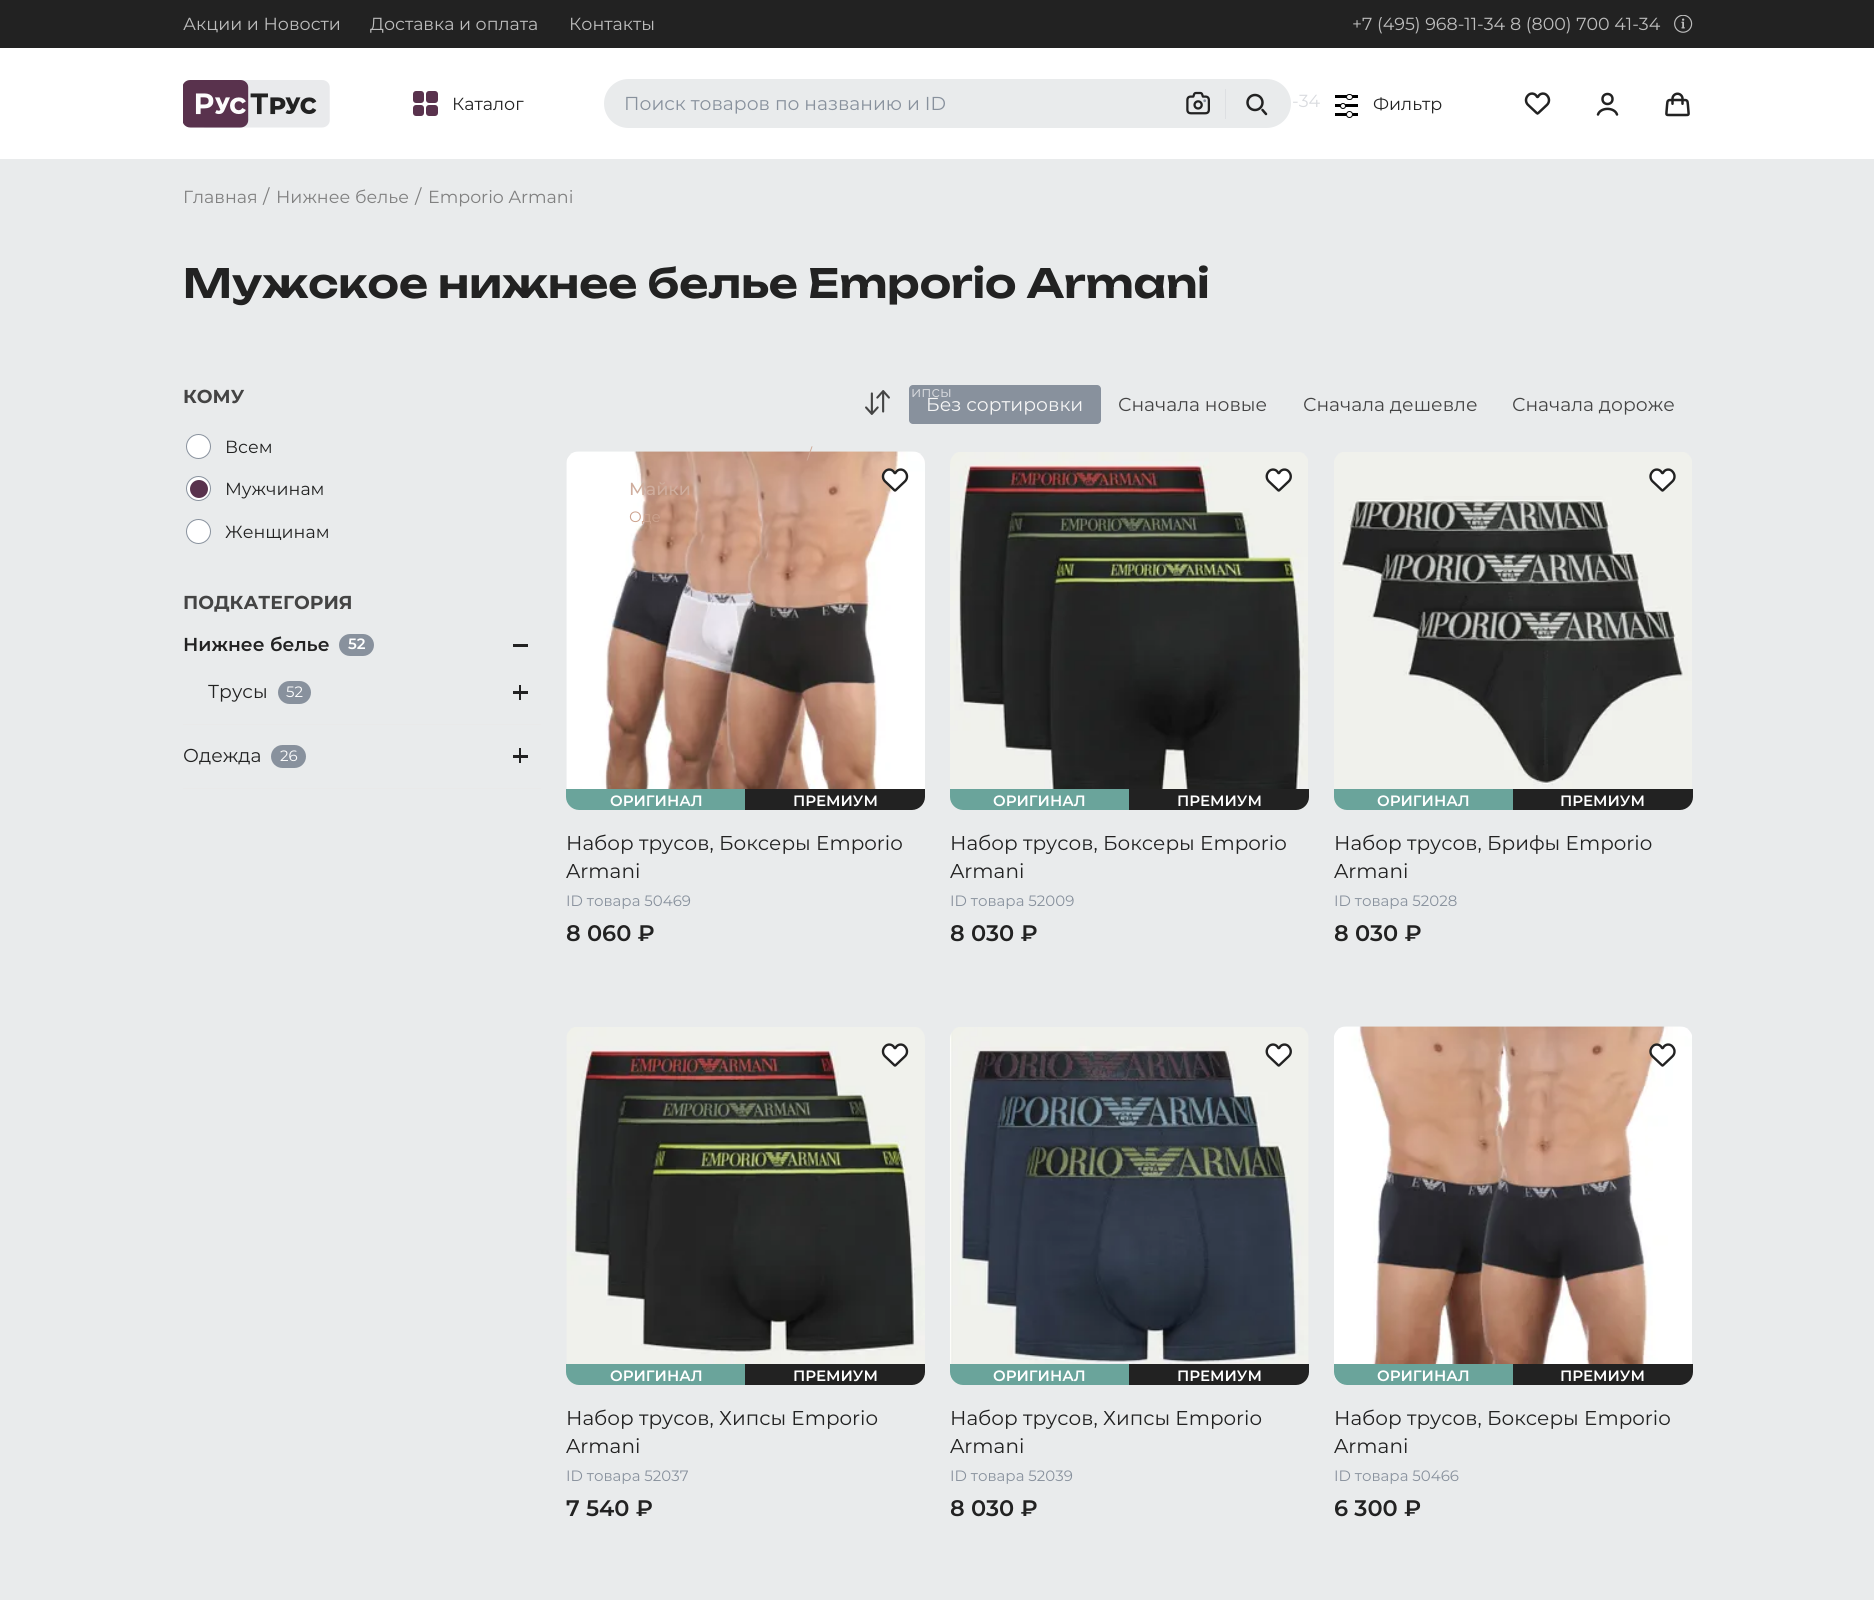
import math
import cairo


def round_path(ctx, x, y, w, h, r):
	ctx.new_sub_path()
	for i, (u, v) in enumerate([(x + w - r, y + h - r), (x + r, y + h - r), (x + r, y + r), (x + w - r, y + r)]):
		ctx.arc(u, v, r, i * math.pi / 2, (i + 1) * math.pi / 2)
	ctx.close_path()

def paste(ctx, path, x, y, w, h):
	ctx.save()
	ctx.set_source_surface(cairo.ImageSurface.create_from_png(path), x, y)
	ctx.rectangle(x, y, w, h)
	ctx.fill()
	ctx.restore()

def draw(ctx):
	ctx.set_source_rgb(0.914, 0.918, 0.925)
	ctx.paint()
	ctx.set_source_rgb(0.133, 0.133, 0.133)
	ctx.rectangle(0, 0, 1874, 48)
	ctx.fill()
	ctx.select_font_face('Montserrat')
	ctx.set_font_size(17.5)
	ctx.set_source_rgb(0.741, 0.741, 0.741)
	for x, y, s in [
		(183, 30, 'Акции и Новости'),
		(370, 30, 'Доставка и оплата'),
		(569, 30, 'Контакты'),
		(1352, 30, '+7 (495) 968-11-34'),
		(1510, 30, '8 (800) 700 41-34'),
	]:
		ctx.move_to(x, y)
		ctx.show_text(s)
	paste(ctx, 'media/1.png', 1674, 15, 19, 18)
	ctx.set_source_rgb(1, 1, 1)
	ctx.rectangle(0, 48, 1874, 111)
	ctx.fill()
	ctx.set_source_rgb(0.851, 0.859, 0.875)
	ctx.move_to(1292, 107)
	ctx.show_text('-34')
	paste(ctx, 'media/2.png', 183, 80, 147, 48)
	ctx.set_source_rgb(0.349, 0.196, 0.302)
	round_path(ctx, 413, 91, 11, 12, 3)
	ctx.fill()
	round_path(ctx, 426, 91, 12, 12, 3)
	ctx.fill()
	round_path(ctx, 413, 105, 11, 11, 3)
	ctx.fill()
	round_path(ctx, 426, 105, 12, 11, 3)
	ctx.fill()
	ctx.set_source_rgb(0.133, 0.133, 0.133)
	ctx.move_to(452, 110)
	ctx.show_text('Каталог')
	ctx.set_source_rgb(0.914, 0.918, 0.925)
	round_path(ctx, 604, 79, 687, 49, 24.5)
	ctx.fill()
	ctx.set_font_size(18.75)
	ctx.set_source_rgb(0.533, 0.569, 0.616)
	ctx.move_to(624, 110)
	ctx.show_text('Поиск товаров по названию и ID')
	paste(ctx, 'media/3.png', 1186, 91, 24, 24)
	ctx.set_source_rgb(0.867, 0.875, 0.886)
	ctx.rectangle(1225, 89, 1, 30)
	ctx.fill()
	ctx.arc(1255, 102.5, 7.5, 0, 2 * math.pi)
	ctx.set_source_rgb(0.133, 0.133, 0.133)
	ctx.set_line_width(2.5)
	ctx.stroke()
	ctx.new_path()
	ctx.move_to(1266, 114)
	ctx.line_to(1262.5, 110)
	ctx.set_line_cap(cairo.LINE_CAP_ROUND)
	ctx.stroke()
	ctx.set_source_rgb(0.533, 0.569, 0.616)
	round_path(ctx, 909, 385, 192, 39, 4)
	ctx.fill()
	ctx.set_font_size(15)
	ctx.set_source_rgb(0.851, 0.859, 0.875)
	ctx.move_to(911, 397)
	ctx.show_text('ипсы')
	paste(ctx, 'media/8.png', 566, 451, 359, 359)
	ctx.set_source_rgb(0.808, 0.659, 0.584)
	ctx.move_to(807, 459)
	ctx.show_text('/')
	ctx.select_font_face('Montserrat Medium')
	ctx.set_font_size(17.5)
	ctx.set_source_rgb(0.812, 0.678, 0.616)
	ctx.move_to(629, 495)
	ctx.show_text('Майки')
	ctx.select_font_face('Montserrat')
	ctx.set_font_size(15)
	ctx.set_source_rgb(0.8, 0.635, 0.553)
	ctx.move_to(629, 522)
	ctx.show_text('Оде')
	ctx.set_source_rgb(0, 0, 0)
	ctx.rectangle(1335, 95, 23, 3)
	ctx.fill()
	ctx.set_source_rgb(1, 1, 1)
	round_path(ctx, 1346.5, 94.5, 6, 5, 2.5)
	ctx.fill_preserve()
	ctx.set_source_rgb(0, 0, 0)
	ctx.set_line_width(1)
	ctx.set_line_cap(cairo.LINE_CAP_BUTT)
	ctx.stroke()
	ctx.rectangle(1335, 104, 23, 3)
	ctx.fill()
	ctx.set_source_rgb(1, 1, 1)
	ctx.arc(1343, 106, 2.5, 0, 2 * math.pi)
	ctx.fill_preserve()
	ctx.set_source_rgb(0, 0, 0)
	ctx.stroke()
	ctx.rectangle(1335, 113, 23, 3)
	ctx.fill()
	ctx.set_source_rgb(1, 1, 1)
	ctx.arc(1349.5, 114.5, 3, 0, 2 * math.pi)
	ctx.fill_preserve()
	ctx.set_source_rgb(0, 0, 0)
	ctx.stroke()
	ctx.set_font_size(17.5)
	ctx.set_source_rgb(0.133, 0.133, 0.133)
	ctx.move_to(1373, 110)
	ctx.show_text('Фильтр')
	paste(ctx, 'media/4.png', 1524, 92, 27, 23)
	ctx.new_path()
	ctx.move_to(1617, 114.5)
	ctx.curve_to(1614.5, 107, 1600.5, 107, 1598, 114.5)
	ctx.set_line_width(2.5)
	ctx.set_line_cap(cairo.LINE_CAP_ROUND)
	ctx.stroke()
	ctx.arc(1607.5, 99, 5, 0, 2 * math.pi)
	ctx.set_line_cap(cairo.LINE_CAP_BUTT)
	ctx.stroke()
	paste(ctx, 'media/5.png', 1665, 92, 25, 25)
	ctx.set_source_rgb(0.502, 0.502, 0.502)
	ctx.move_to(183, 203)
	ctx.show_text('Главная')
	ctx.set_font_size(18.75)
	ctx.move_to(263, 203)
	ctx.show_text('/')
	ctx.set_font_size(17.5)
	ctx.move_to(276, 203)
	ctx.show_text('Нижнее белье')
	ctx.set_font_size(18.75)
	ctx.move_to(415, 203)
	ctx.show_text('/')
	ctx.set_font_size(17.5)
	ctx.move_to(428, 203)
	ctx.show_text('Emporio Armani')
	ctx.select_font_face('Unbounded SemiBold')
	ctx.set_font_size(40)
	ctx.set_source_rgb(0.133, 0.133, 0.133)
	ctx.move_to(183, 298)
	ctx.show_text('Мужское нижнее белье Emporio Armani')
	ctx.select_font_face('Montserrat', cairo.FONT_SLANT_NORMAL, cairo.FONT_WEIGHT_BOLD)
	ctx.set_font_size(18.75)
	ctx.set_source_rgb(0.267, 0.267, 0.267)
	ctx.move_to(183, 403)
	ctx.show_text('КОМУ')
	ctx.set_source_rgb(1, 1, 1)
	ctx.new_path()
	ctx.arc(198.5, 446.5, 12, 0, 2 * math.pi)
	ctx.fill_preserve()
	ctx.set_source_rgb(0.533, 0.569, 0.616)
	ctx.set_line_width(1)
	ctx.stroke()
	ctx.select_font_face('Montserrat')
	ctx.set_font_size(17.5)
	ctx.set_source_rgb(0.133, 0.133, 0.133)
	ctx.move_to(225, 453)
	ctx.show_text('Всем')
	ctx.set_source_rgb(1, 1, 1)
	ctx.new_path()
	ctx.arc(198.5, 488.5, 12, 0, 2 * math.pi)
	ctx.fill_preserve()
	ctx.set_source_rgb(0.533, 0.569, 0.616)
	ctx.stroke()
	ctx.set_source_rgb(0.349, 0.196, 0.302)
	ctx.arc(199, 489, 9, 0, 2 * math.pi)
	ctx.fill()
	ctx.set_source_rgb(0.133, 0.133, 0.133)
	ctx.move_to(225, 495)
	ctx.show_text('Мужчинам')
	ctx.set_source_rgb(1, 1, 1)
	ctx.new_path()
	ctx.arc(198.5, 531.5, 12, 0, 2 * math.pi)
	ctx.fill_preserve()
	ctx.set_source_rgb(0.533, 0.569, 0.616)
	ctx.stroke()
	ctx.set_source_rgb(0.133, 0.133, 0.133)
	ctx.move_to(225, 538)
	ctx.show_text('Женщинам')
	ctx.select_font_face('Montserrat', cairo.FONT_SLANT_NORMAL, cairo.FONT_WEIGHT_BOLD)
	ctx.set_font_size(18.75)
	ctx.set_source_rgb(0.267, 0.267, 0.267)
	ctx.move_to(183, 609)
	ctx.show_text('ПОДКАТЕГОРИЯ')
	ctx.set_source_rgb(0.914, 0.914, 0.914)
	ctx.rectangle(183, 724, 358, 1)
	ctx.fill()
	ctx.select_font_face('Montserrat SemiBold')
	ctx.set_source_rgb(0.133, 0.133, 0.133)
	ctx.move_to(183, 651)
	ctx.show_text('Нижнее белье')
	ctx.set_source_rgb(0.533, 0.569, 0.616)
	round_path(ctx, 339, 634, 35, 22, 11)
	ctx.fill()
	ctx.set_font_size(15)
	ctx.set_source_rgb(1, 1, 1)
	ctx.move_to(348, 649)
	ctx.show_text('52')
	ctx.set_source_rgb(0.133, 0.133, 0.133)
	ctx.rectangle(513, 644, 15, 3)
	ctx.fill()
	ctx.select_font_face('Montserrat')
	ctx.set_font_size(18.75)
	ctx.move_to(208, 698)
	ctx.show_text('Трусы')
	ctx.set_source_rgb(0.533, 0.569, 0.616)
	round_path(ctx, 278, 681, 33, 23, 11.5)
	ctx.fill()
	ctx.set_font_size(15)
	ctx.set_source_rgb(1, 1, 1)
	ctx.move_to(286, 697)
	ctx.show_text('52')
	ctx.set_source_rgb(0.133, 0.133, 0.133)
	ctx.rectangle(513, 691, 15, 3)
	ctx.rectangle(519, 685, 2, 15)
	ctx.fill()
	ctx.set_source_rgb(0.914, 0.914, 0.914)
	ctx.rectangle(183, 788, 358, 1)
	ctx.fill()
	ctx.set_font_size(18.75)
	ctx.set_source_rgb(0.133, 0.133, 0.133)
	ctx.move_to(183, 762)
	ctx.show_text('Одежда')
	ctx.set_source_rgb(0.533, 0.569, 0.616)
	round_path(ctx, 271, 745, 35, 23, 11.5)
	ctx.fill()
	ctx.set_font_size(15)
	ctx.set_source_rgb(1, 1, 1)
	ctx.move_to(280, 761)
	ctx.show_text('26')
	ctx.set_source_rgb(0.133, 0.133, 0.133)
	ctx.rectangle(513, 755, 15, 3)
	ctx.fill()
	ctx.rectangle(519, 748, 2, 15)
	ctx.fill()
	paste(ctx, 'media/6.png', 865, 390, 25, 25)
	ctx.set_font_size(18.75)
	ctx.set_source_rgb(0.961, 0.961, 0.961)
	ctx.move_to(926, 411)
	ctx.show_text('Без сортировки')
	ctx.set_source_rgb(0.267, 0.267, 0.267)
	for x, y, s in [
		(1118, 411, 'Сначала новые'),
		(1303, 411, 'Сначала дешевле'),
		(1512, 411, 'Сначала дороже'),
	]:
		ctx.move_to(x, y)
		ctx.show_text(s)
	paste(ctx, 'media/7.png', 881, 468, 28, 24)
	ctx.set_source_rgb(0.416, 0.643, 0.608)
	ctx.new_path()
	ctx.move_to(566, 789)
	ctx.line_to(745, 789)
	ctx.line_to(745, 810)
	ctx.line_to(579, 810)
	ctx.curve_to(572, 810, 566, 804, 566, 797)
	ctx.close_path()
	ctx.fill()
	ctx.select_font_face('Montserrat SemiBold')
	ctx.set_font_size(15)
	ctx.set_source_rgb(1, 1, 1)
	ctx.move_to(610, 806)
	ctx.show_text('ОРИГИНАЛ')
	ctx.set_source_rgb(0.133, 0.133, 0.133)
	ctx.new_path()
	ctx.move_to(745, 789)
	ctx.line_to(925, 789)
	ctx.line_to(925, 797)
	ctx.curve_to(925, 804, 919, 810, 912, 810)
	ctx.line_to(745, 810)
	ctx.close_path()
	ctx.fill()
	ctx.set_source_rgb(1, 1, 1)
	ctx.move_to(793, 806)
	ctx.show_text('ПРЕМИУМ')
	ctx.select_font_face('Montserrat')
	ctx.set_font_size(20)
	ctx.set_source_rgb(0.133, 0.133, 0.133)
	ctx.move_to(566, 850)
	ctx.show_text('Набор трусов, Боксеры Emporio')
	ctx.move_to(566, 878)
	ctx.show_text('Armani')
	ctx.set_font_size(15)
	ctx.set_source_rgb(0.533, 0.569, 0.616)
	ctx.move_to(566, 906)
	ctx.show_text('ID товара 50469')
	ctx.select_font_face('Montserrat SemiBold')
	ctx.set_font_size(22.5)
	ctx.set_source_rgb(0.133, 0.133, 0.133)
	ctx.move_to(566, 941)
	ctx.show_text('8 060 ₽')
	paste(ctx, 'media/10.png', 950, 452, 358, 358)
	paste(ctx, 'media/9.png', 1265, 468, 27, 24)
	ctx.set_source_rgb(0.416, 0.643, 0.608)
	ctx.new_path()
	ctx.move_to(950, 789)
	ctx.line_to(1129, 789)
	ctx.line_to(1129, 810)
	ctx.line_to(963, 810)
	ctx.curve_to(956, 810, 950, 804, 950, 797)
	ctx.close_path()
	ctx.fill()
	ctx.set_font_size(15)
	ctx.set_source_rgb(1, 1, 1)
	ctx.move_to(993, 806)
	ctx.show_text('ОРИГИНАЛ')
	ctx.set_source_rgb(0.133, 0.133, 0.133)
	ctx.new_path()
	ctx.move_to(1129, 789)
	ctx.line_to(1309, 789)
	ctx.line_to(1309, 797)
	ctx.curve_to(1309, 804, 1303, 810, 1296, 810)
	ctx.line_to(1129, 810)
	ctx.close_path()
	ctx.fill()
	ctx.set_source_rgb(1, 1, 1)
	ctx.move_to(1177, 806)
	ctx.show_text('ПРЕМИУМ')
	ctx.select_font_face('Montserrat')
	ctx.set_font_size(20)
	ctx.set_source_rgb(0.133, 0.133, 0.133)
	ctx.move_to(950, 850)
	ctx.show_text('Набор трусов, Боксеры Emporio')
	ctx.move_to(950, 878)
	ctx.show_text('Armani')
	ctx.set_font_size(15)
	ctx.set_source_rgb(0.533, 0.569, 0.616)
	ctx.move_to(950, 906)
	ctx.show_text('ID товара 52009')
	ctx.select_font_face('Montserrat SemiBold')
	ctx.set_font_size(22.5)
	ctx.set_source_rgb(0.133, 0.133, 0.133)
	ctx.move_to(950, 941)
	ctx.show_text('8 030 ₽')
	paste(ctx, 'media/12.png', 1334, 452, 358, 358)
	paste(ctx, 'media/11.png', 1649, 468, 27, 24)
	ctx.set_source_rgb(0.416, 0.643, 0.608)
	ctx.new_path()
	ctx.move_to(1334, 789)
	ctx.line_to(1513, 789)
	ctx.line_to(1513, 810)
	ctx.line_to(1347, 810)
	ctx.curve_to(1340, 810, 1334, 804, 1334, 797)
	ctx.close_path()
	ctx.fill()
	ctx.set_font_size(15)
	ctx.set_source_rgb(1, 1, 1)
	ctx.move_to(1377, 806)
	ctx.show_text('ОРИГИНАЛ')
	ctx.set_source_rgb(0.133, 0.133, 0.133)
	ctx.new_path()
	ctx.move_to(1513, 789)
	ctx.line_to(1693, 789)
	ctx.line_to(1693, 797)
	ctx.curve_to(1693, 804, 1687, 810, 1680, 810)
	ctx.line_to(1513, 810)
	ctx.close_path()
	ctx.fill()
	ctx.set_source_rgb(1, 1, 1)
	ctx.move_to(1560, 806)
	ctx.show_text('ПРЕМИУМ')
	ctx.select_font_face('Montserrat')
	ctx.set_font_size(20)
	ctx.set_source_rgb(0.133, 0.133, 0.133)
	ctx.move_to(1334, 850)
	ctx.show_text('Набор трусов, Брифы Emporio')
	ctx.move_to(1334, 878)
	ctx.show_text('Armani')
	ctx.set_font_size(15)
	ctx.set_source_rgb(0.533, 0.569, 0.616)
	ctx.move_to(1334, 906)
	ctx.show_text('ID товара 52028')
	ctx.select_font_face('Montserrat SemiBold')
	ctx.set_font_size(22.5)
	ctx.set_source_rgb(0.133, 0.133, 0.133)
	ctx.move_to(1334, 941)
	ctx.show_text('8 030 ₽')
	paste(ctx, 'media/14.png', 566, 1027, 359, 358)
	paste(ctx, 'media/13.png', 881, 1043, 28, 24)
	ctx.set_source_rgb(0.416, 0.643, 0.608)
	ctx.new_path()
	ctx.move_to(566, 1364)
	ctx.line_to(745, 1364)
	ctx.line_to(745, 1385)
	ctx.line_to(579, 1385)
	ctx.curve_to(572, 1385, 566, 1379, 566, 1372)
	ctx.close_path()
	ctx.fill()
	ctx.set_font_size(15)
	ctx.set_source_rgb(1, 1, 1)
	ctx.move_to(610, 1381)
	ctx.show_text('ОРИГИНАЛ')
	ctx.set_source_rgb(0.133, 0.133, 0.133)
	ctx.new_path()
	ctx.move_to(745, 1364)
	ctx.line_to(925, 1364)
	ctx.line_to(925, 1372)
	ctx.curve_to(925, 1379, 919, 1385, 912, 1385)
	ctx.line_to(745, 1385)
	ctx.close_path()
	ctx.fill()
	ctx.set_source_rgb(1, 1, 1)
	ctx.move_to(793, 1381)
	ctx.show_text('ПРЕМИУМ')
	ctx.select_font_face('Montserrat')
	ctx.set_font_size(20)
	ctx.set_source_rgb(0.133, 0.133, 0.133)
	ctx.move_to(566, 1425)
	ctx.show_text('Набор трусов, Хипсы Emporio')
	ctx.move_to(566, 1453)
	ctx.show_text('Armani')
	ctx.set_font_size(15)
	ctx.set_source_rgb(0.533, 0.569, 0.616)
	ctx.move_to(566, 1481)
	ctx.show_text('ID товара 52037')
	ctx.select_font_face('Montserrat SemiBold')
	ctx.set_font_size(22.5)
	ctx.set_source_rgb(0.133, 0.133, 0.133)
	ctx.move_to(566, 1516)
	ctx.show_text('7 540 ₽')
	paste(ctx, 'media/15.png', 950, 1027, 359, 358)
	paste(ctx, 'media/9.png', 1265, 1043, 27, 24)
	ctx.set_source_rgb(0.416, 0.643, 0.608)
	ctx.new_path()
	ctx.move_to(950, 1364)
	ctx.line_to(1129, 1364)
	ctx.line_to(1129, 1385)
	ctx.line_to(963, 1385)
	ctx.curve_to(956, 1385, 950, 1379, 950, 1372)
	ctx.close_path()
	ctx.fill()
	ctx.set_font_size(15)
	ctx.set_source_rgb(1, 1, 1)
	ctx.move_to(993, 1381)
	ctx.show_text('ОРИГИНАЛ')
	ctx.set_source_rgb(0.133, 0.133, 0.133)
	ctx.new_path()
	ctx.move_to(1129, 1364)
	ctx.line_to(1309, 1364)
	ctx.line_to(1309, 1372)
	ctx.curve_to(1309, 1379, 1303, 1385, 1296, 1385)
	ctx.line_to(1129, 1385)
	ctx.close_path()
	ctx.fill()
	ctx.set_source_rgb(1, 1, 1)
	ctx.move_to(1177, 1381)
	ctx.show_text('ПРЕМИУМ')
	ctx.select_font_face('Montserrat')
	ctx.set_font_size(20)
	ctx.set_source_rgb(0.133, 0.133, 0.133)
	ctx.move_to(950, 1425)
	ctx.show_text('Набор трусов, Хипсы Emporio')
	ctx.move_to(950, 1453)
	ctx.show_text('Armani')
	ctx.set_font_size(15)
	ctx.set_source_rgb(0.533, 0.569, 0.616)
	ctx.move_to(950, 1481)
	ctx.show_text('ID товара 52039')
	ctx.select_font_face('Montserrat SemiBold')
	ctx.set_font_size(22.5)
	ctx.set_source_rgb(0.133, 0.133, 0.133)
	ctx.move_to(950, 1516)
	ctx.show_text('8 030 ₽')
	paste(ctx, 'media/17.png', 1334, 1026, 358, 359)
	paste(ctx, 'media/16.png', 1649, 1043, 27, 24)
	ctx.set_source_rgb(0.416, 0.643, 0.608)
	ctx.new_path()
	ctx.move_to(1334, 1364)
	ctx.line_to(1513, 1364)
	ctx.line_to(1513, 1385)
	ctx.line_to(1347, 1385)
	ctx.curve_to(1340, 1385, 1334, 1379, 1334, 1372)
	ctx.close_path()
	ctx.fill()
	ctx.set_font_size(15)
	ctx.set_source_rgb(1, 1, 1)
	ctx.move_to(1377, 1381)
	ctx.show_text('ОРИГИНАЛ')
	ctx.set_source_rgb(0.133, 0.133, 0.133)
	ctx.new_path()
	ctx.move_to(1513, 1364)
	ctx.line_to(1693, 1364)
	ctx.line_to(1693, 1372)
	ctx.curve_to(1693, 1379, 1687, 1385, 1680, 1385)
	ctx.line_to(1513, 1385)
	ctx.close_path()
	ctx.fill()
	ctx.set_source_rgb(1, 1, 1)
	ctx.move_to(1560, 1381)
	ctx.show_text('ПРЕМИУМ')
	ctx.select_font_face('Montserrat')
	ctx.set_font_size(20)
	ctx.set_source_rgb(0.133, 0.133, 0.133)
	ctx.move_to(1334, 1425)
	ctx.show_text('Набор трусов, Боксеры Emporio')
	ctx.move_to(1334, 1453)
	ctx.show_text('Armani')
	ctx.set_font_size(15)
	ctx.set_source_rgb(0.533, 0.569, 0.616)
	ctx.move_to(1334, 1481)
	ctx.show_text('ID товара 50466')
	ctx.select_font_face('Montserrat SemiBold')
	ctx.set_font_size(22.5)
	ctx.set_source_rgb(0.133, 0.133, 0.133)
	ctx.move_to(1334, 1516)
	ctx.show_text('6 300 ₽')


surface = cairo.ImageSurface(cairo.FORMAT_RGB24, 1874, 1600)
ctx = cairo.Context(surface)
options = cairo.FontOptions()
options.set_hint_metrics(cairo.HINT_METRICS_OFF)
options.set_hint_style(cairo.HINT_STYLE_NONE)
ctx.set_font_options(options)
ctx.set_miter_limit(4)
draw(ctx)
surface.write_to_png('image.png')
